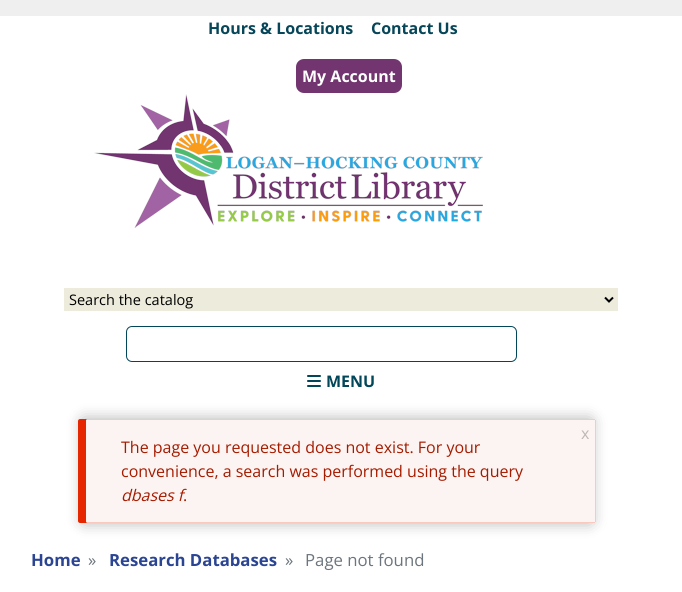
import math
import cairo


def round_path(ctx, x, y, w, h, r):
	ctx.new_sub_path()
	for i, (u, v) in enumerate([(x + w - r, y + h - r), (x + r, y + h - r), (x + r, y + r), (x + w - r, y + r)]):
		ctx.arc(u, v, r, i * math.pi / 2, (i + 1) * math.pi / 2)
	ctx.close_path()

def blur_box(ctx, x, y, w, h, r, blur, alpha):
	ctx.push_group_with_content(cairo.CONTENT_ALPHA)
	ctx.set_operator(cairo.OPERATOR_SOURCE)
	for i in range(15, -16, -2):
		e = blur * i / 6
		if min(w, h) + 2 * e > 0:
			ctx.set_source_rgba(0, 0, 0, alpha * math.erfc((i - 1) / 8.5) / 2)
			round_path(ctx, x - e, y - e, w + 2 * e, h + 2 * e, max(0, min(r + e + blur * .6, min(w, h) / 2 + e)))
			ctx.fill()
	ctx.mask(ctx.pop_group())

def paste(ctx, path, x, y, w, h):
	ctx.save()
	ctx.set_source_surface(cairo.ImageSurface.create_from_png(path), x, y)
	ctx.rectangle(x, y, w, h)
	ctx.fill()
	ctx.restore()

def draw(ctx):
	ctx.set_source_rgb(1, 1, 1)
	ctx.paint()
	ctx.set_source_rgb(0.937, 0.937, 0.937)
	ctx.rectangle(0, 0, 682, 16)
	ctx.fill()
	ctx.select_font_face('Open Sans', cairo.FONT_SLANT_NORMAL, cairo.FONT_WEIGHT_BOLD)
	ctx.set_font_size(16)
	ctx.set_source_rgb(0.031, 0.275, 0.345)
	ctx.move_to(208, 34)
	ctx.show_text('Hours & Locations')
	ctx.move_to(371, 34)
	ctx.show_text('Contact Us')
	ctx.set_source_rgb(0.447, 0.208, 0.439)
	round_path(ctx, 296, 59, 106, 34, 8)
	ctx.fill()
	ctx.set_source_rgb(1, 1, 1)
	ctx.move_to(302, 82)
	ctx.show_text('My Account')
	paste(ctx, 'media/1.png', 94, 94, 389, 134)
	ctx.set_source_rgb(0.929, 0.918, 0.863)
	ctx.rectangle(64, 288, 554, 23)
	ctx.fill()
	ctx.new_path()
	ctx.move_to(605, 297.5)
	ctx.line_to(609, 301.5)
	ctx.line_to(613, 297.5)
	ctx.set_source_rgb(0, 0, 0)
	ctx.stroke()
	ctx.select_font_face('Open Sans')
	ctx.set_font_size(14.5)
	ctx.move_to(69, 305)
	ctx.show_text('Search the catalog')
	round_path(ctx, 126.5, 326.5, 390, 35, 5.5)
	ctx.set_source_rgb(0.008, 0.275, 0.349)
	ctx.set_line_width(1)
	ctx.stroke()
	paste(ctx, 'media/2.png', 307, 375, 14, 12)
	ctx.select_font_face('Open Sans', cairo.FONT_SLANT_NORMAL, cairo.FONT_WEIGHT_BOLD)
	ctx.set_font_size(16)
	ctx.move_to(326, 387)
	ctx.show_text('MENU')
	ctx.set_source_rgb(0, 0, 0)
	blur_box(ctx, 82, 419, 510, 104, 2, 7.5, 0.3)
	ctx.set_source_rgb(0.902, 0.149, 0)
	ctx.new_path()
	ctx.move_to(80, 419)
	ctx.curve_to(79, 419, 78, 420, 78, 421)
	ctx.line_to(78, 521)
	ctx.curve_to(78, 522, 79, 523, 80, 523)
	ctx.line_to(88, 523)
	ctx.curve_to(87, 523, 86, 522, 86, 521)
	ctx.line_to(86, 420)
	ctx.line_to(88, 419)
	ctx.close_path()
	ctx.fill()
	ctx.set_source_rgb(0.988, 0.957, 0.949)
	round_path(ctx, 86, 419, 510, 104, 2)
	ctx.fill()
	ctx.set_source_rgb(0.976, 0.788, 0.749)
	ctx.rectangle(87, 419, 508, 1)
	ctx.rectangle(595, 420, 1, 102)
	ctx.rectangle(87, 522, 508, 1)
	ctx.fill()
	ctx.select_font_face('Open Sans')
	ctx.set_source_rgb(0.741, 0.718, 0.714)
	ctx.move_to(581, 439)
	ctx.show_text('x')
	ctx.set_source_rgb(0.647, 0.106, 0)
	ctx.move_to(121, 453)
	ctx.show_text('The page you requested does not exist. For your')
	ctx.move_to(121, 477)
	ctx.show_text('convenience, a search was performed using the query')
	ctx.select_font_face('Open Sans', cairo.FONT_SLANT_ITALIC)
	ctx.move_to(121, 501)
	ctx.show_text('dbases f')
	ctx.select_font_face('Open Sans')
	ctx.move_to(183, 501)
	ctx.show_text('.')
	ctx.select_font_face('Open Sans', cairo.FONT_SLANT_NORMAL, cairo.FONT_WEIGHT_BOLD)
	ctx.set_font_size(16.75)
	ctx.set_source_rgb(0.169, 0.271, 0.576)
	ctx.move_to(31, 566)
	ctx.show_text('Home')
	ctx.select_font_face('Open Sans')
	ctx.set_source_rgb(0.424, 0.459, 0.49)
	ctx.move_to(88, 566)
	ctx.show_text('»')
	ctx.select_font_face('Open Sans', cairo.FONT_SLANT_NORMAL, cairo.FONT_WEIGHT_BOLD)
	ctx.set_source_rgb(0.169, 0.271, 0.576)
	ctx.move_to(109, 566)
	ctx.show_text('Research Databases')
	ctx.select_font_face('Open Sans')
	ctx.set_source_rgb(0.424, 0.459, 0.49)
	ctx.move_to(285, 566)
	ctx.show_text('»')
	ctx.move_to(305, 566)
	ctx.show_text('Page not found')


surface = cairo.ImageSurface(cairo.FORMAT_RGB24, 682, 592)
ctx = cairo.Context(surface)
options = cairo.FontOptions()
options.set_hint_metrics(cairo.HINT_METRICS_OFF)
options.set_hint_style(cairo.HINT_STYLE_NONE)
ctx.set_font_options(options)
ctx.set_miter_limit(4)
draw(ctx)
surface.write_to_png('image.png')
